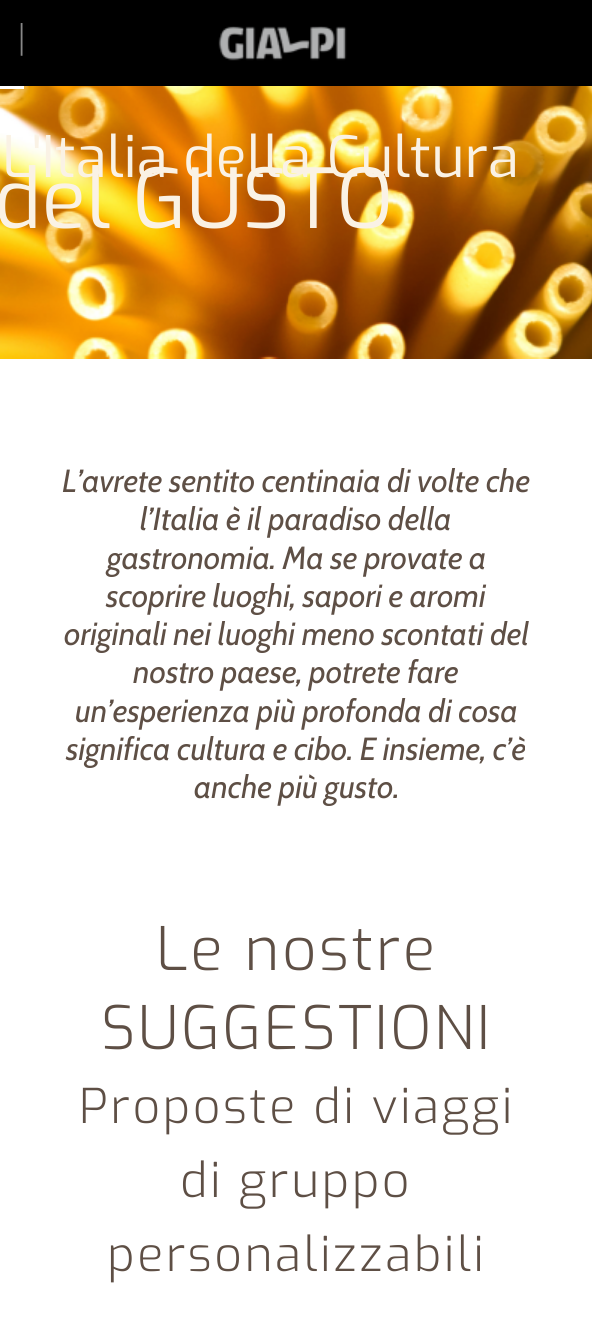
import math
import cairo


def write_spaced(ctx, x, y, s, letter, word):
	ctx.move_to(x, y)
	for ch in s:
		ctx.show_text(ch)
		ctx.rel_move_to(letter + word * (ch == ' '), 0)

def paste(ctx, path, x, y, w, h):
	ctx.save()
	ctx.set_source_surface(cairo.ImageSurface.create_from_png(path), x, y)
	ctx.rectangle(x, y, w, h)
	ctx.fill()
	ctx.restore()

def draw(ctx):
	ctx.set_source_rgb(1, 1, 1)
	ctx.paint()
	ctx.set_source_rgb(0, 0, 0)
	ctx.rectangle(0, 0, 592, 86)
	ctx.fill()
	ctx.select_font_face('Liberation Serif')
	ctx.set_font_size(36)
	ctx.set_source_rgb(0.533, 0.533, 0.533)
	write_spaced(ctx, 18, 48, '|', 2, 0)
	paste(ctx, 'media/1.png', 218, 26, 129, 35)
	paste(ctx, 'media/2.png', 0, 86, 592, 273)
	ctx.set_source_rgb(1, 1, 1)
	ctx.rectangle(0, 86, 24, 3)
	ctx.fill()
	ctx.select_font_face('Exo')
	ctx.set_font_size(57)
	ctx.set_source_rgb(0.98, 0.949, 0.898)
	ctx.move_to(2, 177)
	ctx.show_text('L\'Italia della Cultura')
	ctx.set_font_size(82.5)
	ctx.move_to(-6, 228)
	ctx.show_text('del GUSTO')
	ctx.select_font_face('Cabin', cairo.FONT_SLANT_ITALIC)
	ctx.set_font_size(32)
	ctx.set_source_rgb(0.369, 0.31, 0.271)
	for x, y, s in [
		(62, 492, 'L’avrete sentito centinaia di volte che'),
		(140, 530, 'l’Italia è il paradiso della'),
		(107, 569, 'gastronomia. Ma se provate a'),
		(106, 607, 'scoprire luoghi, sapori e aromi'),
		(64, 645, 'originali nei luoghi meno scontati del'),
		(133, 683, 'nostro paese, potrete fare'),
		(75, 722, 'un’esperienza più profonda di cosa'),
		(66, 760, 'significa cultura e cibo. E insieme, c’è'),
		(194, 798, 'anche più gusto.'),
	]:
		ctx.move_to(x, y)
		ctx.show_text(s)
	ctx.select_font_face('Exo Light')
	ctx.set_font_size(60)
	write_spaced(ctx, 156, 970, 'Le nostre', 2.5, 0)
	write_spaced(ctx, 101, 1049, 'SUGGESTIONI', 2.5, 0)
	ctx.set_font_size(48)
	for x, y, s in [
		(79, 1123, 'Proposte di viaggi'),
		(180, 1197, 'di gruppo'),
		(107, 1271, 'personalizzabili'),
	]:
		write_spaced(ctx, x, y, s, 2.5, 0)


surface = cairo.ImageSurface(cairo.FORMAT_RGB24, 592, 1337)
ctx = cairo.Context(surface)
options = cairo.FontOptions()
options.set_hint_metrics(cairo.HINT_METRICS_OFF)
options.set_hint_style(cairo.HINT_STYLE_NONE)
ctx.set_font_options(options)
ctx.set_miter_limit(4)
draw(ctx)
surface.write_to_png('image.png')
